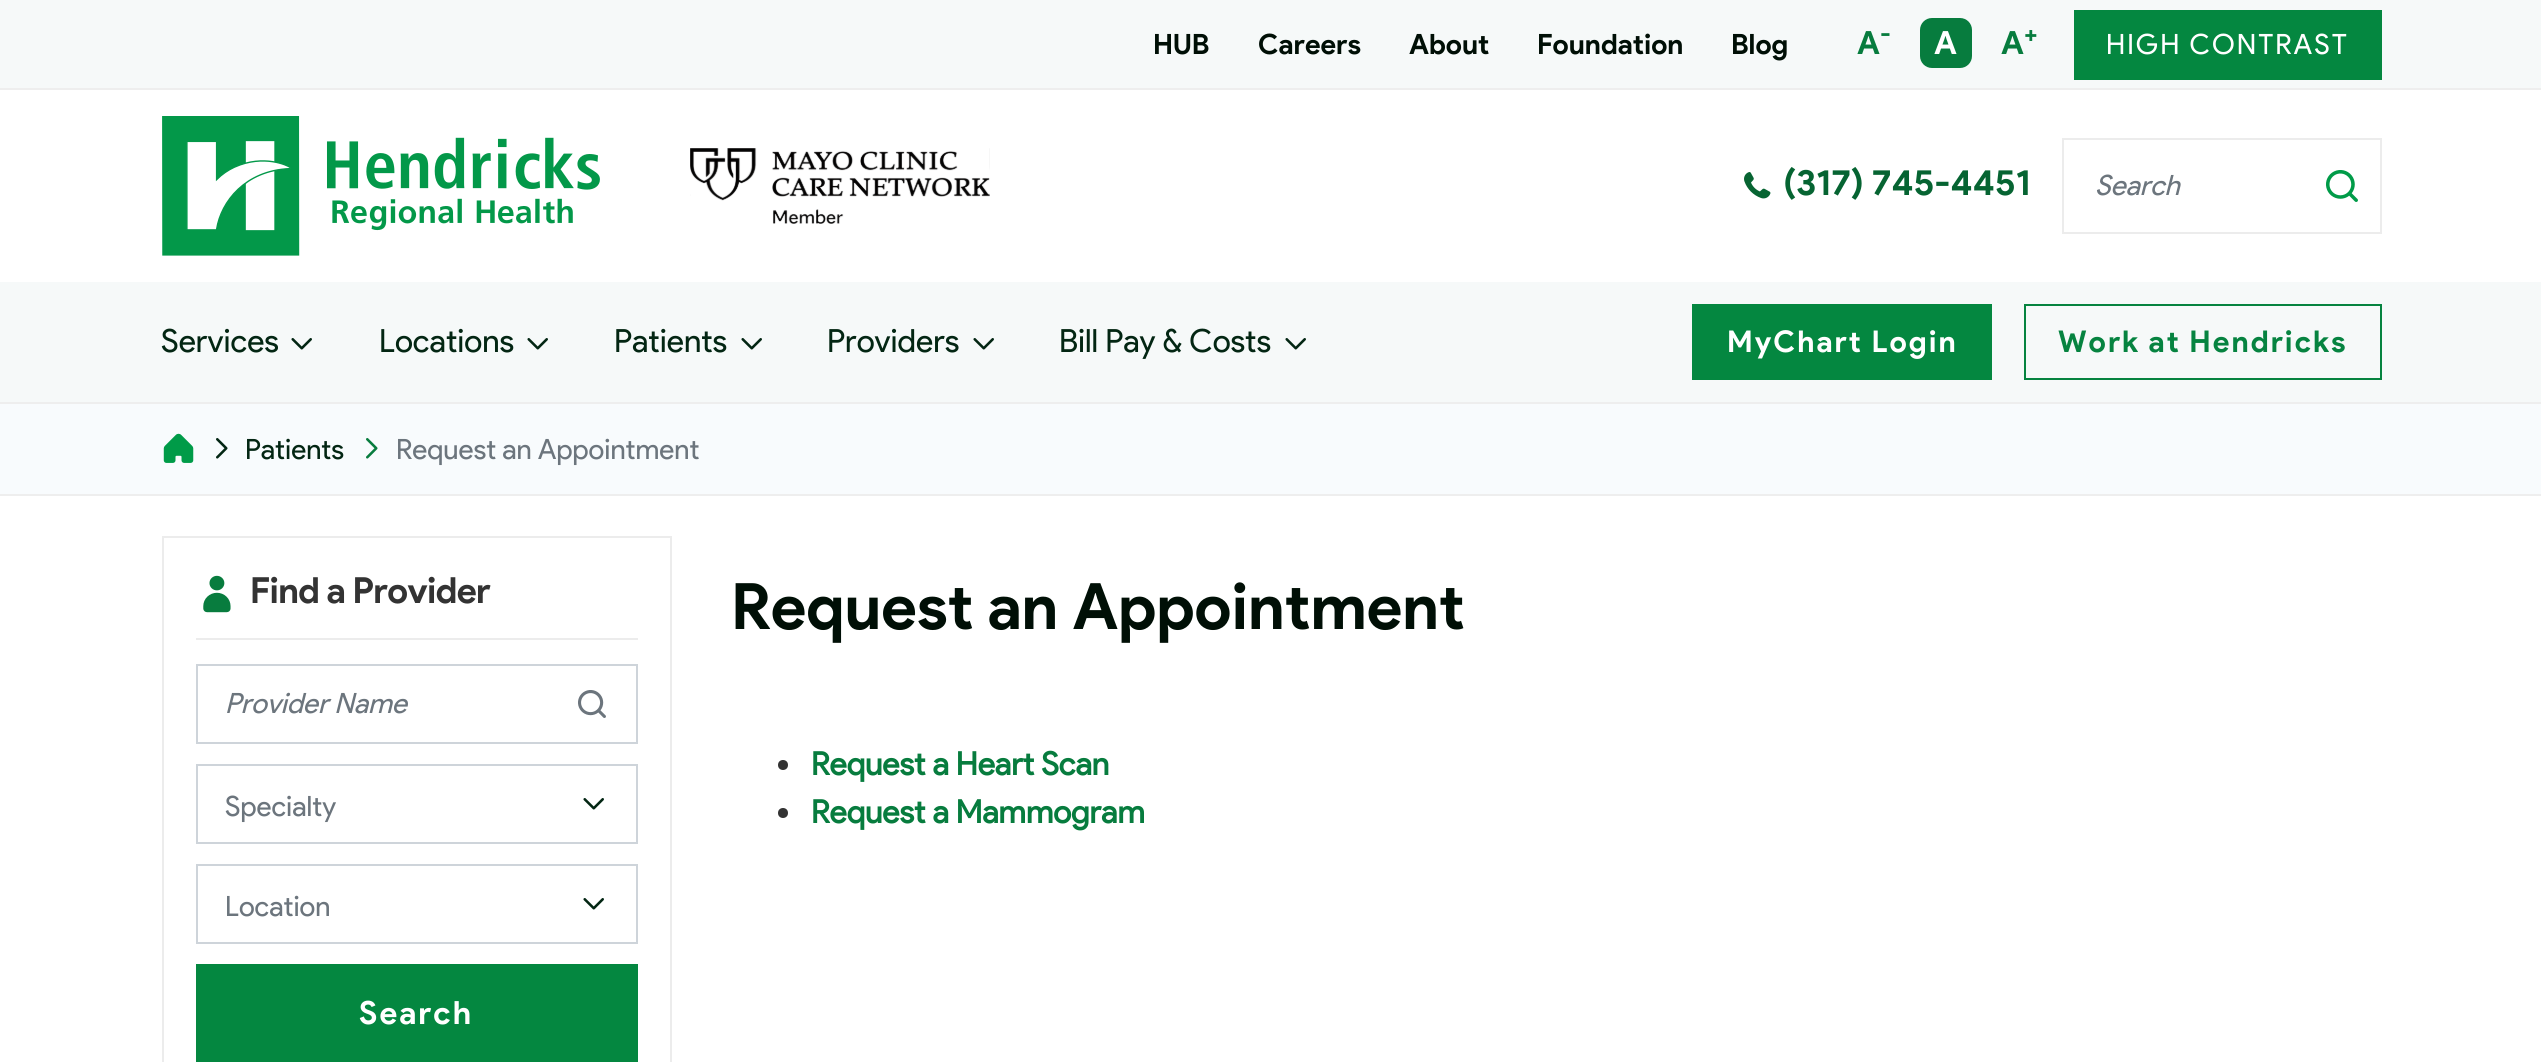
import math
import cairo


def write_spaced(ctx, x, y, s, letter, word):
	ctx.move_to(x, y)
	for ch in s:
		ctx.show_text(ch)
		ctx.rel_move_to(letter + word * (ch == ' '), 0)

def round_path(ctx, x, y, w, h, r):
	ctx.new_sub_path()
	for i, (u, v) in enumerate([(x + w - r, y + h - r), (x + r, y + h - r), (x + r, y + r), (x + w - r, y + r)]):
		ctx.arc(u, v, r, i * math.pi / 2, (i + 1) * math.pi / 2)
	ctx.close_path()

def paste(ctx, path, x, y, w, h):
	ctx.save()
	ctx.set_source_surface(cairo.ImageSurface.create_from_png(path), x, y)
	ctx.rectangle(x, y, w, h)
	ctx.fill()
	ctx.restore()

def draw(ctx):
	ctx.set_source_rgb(1, 1, 1)
	ctx.paint()
	ctx.set_source_rgb(0.961, 0.973, 0.976)
	ctx.rectangle(0, 0, 2541, 88)
	ctx.fill()
	ctx.set_source_rgb(0.933, 0.933, 0.933)
	ctx.rectangle(0, 88, 2541, 2)
	ctx.fill()
	ctx.select_font_face('Product Sans', cairo.FONT_SLANT_NORMAL, cairo.FONT_WEIGHT_BOLD)
	ctx.set_font_size(28)
	ctx.set_source_rgb(0, 0.059, 0.027)
	for x, y, s in [
		(1153, 54, 'HUB'),
		(1258, 54, 'Careers'),
		(1409, 54, 'About'),
		(1537, 54, 'Foundation'),
		(1731, 54, 'Blog'),
	]:
		ctx.move_to(x, y)
		ctx.show_text(s)
	ctx.set_font_size(32)
	ctx.set_source_rgb(0.031, 0.486, 0.243)
	ctx.move_to(1857, 54)
	ctx.show_text('A')
	ctx.set_font_size(24)
	ctx.move_to(1880, 42)
	ctx.show_text('-')
	round_path(ctx, 1920, 18, 52, 50, 12)
	ctx.fill()
	ctx.set_font_size(32)
	ctx.set_source_rgb(1, 1, 1)
	ctx.move_to(1934, 54)
	ctx.show_text('A')
	ctx.set_source_rgb(0.031, 0.486, 0.243)
	ctx.move_to(2001, 54)
	ctx.show_text('A')
	ctx.set_font_size(24)
	ctx.move_to(2024, 42)
	ctx.show_text('+')
	ctx.set_source_rgb(0.016, 0.529, 0.251)
	ctx.rectangle(2074, 10, 308, 70)
	ctx.fill()
	ctx.select_font_face('Product Sans')
	ctx.set_font_size(28)
	ctx.set_source_rgb(1, 1, 1)
	write_spaced(ctx, 2106, 54, 'HIGH CONTRAST', 2, 0)
	paste(ctx, 'media/1.png', 162, 116, 438, 140)
	paste(ctx, 'media/2.png', 690, 148, 300, 76)
	paste(ctx, 'media/3.png', 1744, 172, 27, 27)
	ctx.select_font_face('Product Sans', cairo.FONT_SLANT_NORMAL, cairo.FONT_WEIGHT_BOLD)
	ctx.set_font_size(36)
	ctx.set_source_rgb(0.027, 0.392, 0.196)
	ctx.move_to(1783, 195)
	ctx.show_text('(317) 745-4451')
	ctx.rectangle(2063, 139, 318, 94)
	ctx.set_source_rgb(0.922, 0.922, 0.922)
	ctx.stroke()
	ctx.select_font_face('Product Sans', cairo.FONT_SLANT_ITALIC)
	ctx.set_font_size(28)
	ctx.set_source_rgb(0.424, 0.459, 0.49)
	ctx.move_to(2095, 195)
	ctx.show_text('Search')
	paste(ctx, 'media/4.png', 2326, 170, 32, 32)
	ctx.set_source_rgb(0.961, 0.973, 0.976)
	ctx.rectangle(0, 282, 2541, 120)
	ctx.fill()
	ctx.select_font_face('Product Sans')
	ctx.set_font_size(32)
	ctx.set_source_rgb(0.012, 0.149, 0.075)
	ctx.move_to(161, 352)
	ctx.show_text('Services')
	paste(ctx, 'media/5.png', 291, 338, 21, 12)
	ctx.move_to(379, 352)
	ctx.show_text('Locations')
	paste(ctx, 'media/5.png', 527, 338, 21, 12)
	ctx.move_to(614, 352)
	ctx.show_text('Patients')
	paste(ctx, 'media/5.png', 741, 338, 21, 12)
	ctx.move_to(827, 352)
	ctx.show_text('Providers')
	paste(ctx, 'media/5.png', 973, 338, 21, 12)
	ctx.move_to(1059, 352)
	ctx.show_text('Bill Pay & Costs')
	paste(ctx, 'media/5.png', 1285, 338, 21, 12)
	ctx.set_source_rgb(0.016, 0.529, 0.251)
	ctx.rectangle(1692, 304, 300, 76)
	ctx.fill()
	ctx.select_font_face('Product Sans', cairo.FONT_SLANT_NORMAL, cairo.FONT_WEIGHT_BOLD)
	ctx.set_font_size(30)
	ctx.set_source_rgb(1, 1, 1)
	write_spaced(ctx, 1727, 352, 'MyChart Login', 2, 0)
	ctx.rectangle(2025, 305, 356, 74)
	ctx.set_source_rgb(0.024, 0.514, 0.251)
	ctx.stroke()
	write_spaced(ctx, 2058, 352, 'Work at Hendricks', 2, 0)
	ctx.set_source_rgb(0.969, 0.984, 0.992)
	ctx.rectangle(0, 404, 2541, 90)
	ctx.fill()
	ctx.set_source_rgb(0.933, 0.933, 0.933)
	ctx.rectangle(0, 402, 2541, 2)
	ctx.rectangle(0, 494, 2541, 2)
	ctx.fill()
	paste(ctx, 'media/6.png', 163, 433, 31, 30)
	paste(ctx, 'media/7.png', 216, 438, 12, 21)
	ctx.select_font_face('Product Sans')
	ctx.set_font_size(28)
	ctx.set_source_rgb(0.012, 0.149, 0.075)
	ctx.move_to(245, 459)
	ctx.show_text('Patients')
	paste(ctx, 'media/8.png', 366, 438, 12, 21)
	ctx.set_source_rgb(0.424, 0.459, 0.49)
	ctx.move_to(396, 459)
	ctx.show_text('Request an Appointment')
	ctx.rectangle(163, 537, 508, 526)
	ctx.set_source_rgb(0.922, 0.922, 0.922)
	ctx.stroke()
	ctx.rectangle(196, 638, 442, 2)
	ctx.fill()
	paste(ctx, 'media/9.png', 203, 575, 28, 38)
	ctx.select_font_face('Product Sans', cairo.FONT_SLANT_NORMAL, cairo.FONT_WEIGHT_BOLD)
	ctx.set_font_size(36)
	ctx.set_source_rgb(0.2, 0.2, 0.2)
	write_spaced(ctx, 250, 603, 'Find a Provider', -0.6, 0)
	ctx.rectangle(197, 665, 440, 78)
	ctx.set_source_rgb(0.808, 0.831, 0.855)
	ctx.stroke()
	ctx.select_font_face('Product Sans', cairo.FONT_SLANT_ITALIC)
	ctx.set_font_size(28)
	ctx.set_source_rgb(0.424, 0.459, 0.49)
	ctx.move_to(225, 713)
	ctx.show_text('Provider Name')
	paste(ctx, 'media/10.png', 578, 690, 28, 28)
	ctx.rectangle(197, 765, 440, 78)
	ctx.set_source_rgb(0.808, 0.831, 0.855)
	ctx.stroke()
	ctx.select_font_face('Product Sans')
	ctx.set_source_rgb(0.424, 0.459, 0.49)
	ctx.move_to(225, 816)
	ctx.show_text('Specialty')
	paste(ctx, 'media/11.png', 583, 798, 21, 12)
	ctx.rectangle(197, 865, 440, 78)
	ctx.set_source_rgb(0.808, 0.831, 0.855)
	ctx.stroke()
	ctx.set_source_rgb(0.424, 0.459, 0.49)
	ctx.move_to(225, 916)
	ctx.show_text('Location')
	paste(ctx, 'media/11.png', 583, 898, 21, 12)
	ctx.set_source_rgb(0.016, 0.529, 0.251)
	ctx.rectangle(196, 964, 442, 98)
	ctx.fill()
	ctx.select_font_face('Product Sans', cairo.FONT_SLANT_NORMAL, cairo.FONT_WEIGHT_BOLD)
	ctx.set_font_size(32)
	ctx.set_source_rgb(1, 1, 1)
	write_spaced(ctx, 359, 1024, 'Search', 2, 0)
	ctx.set_font_size(64)
	ctx.set_source_rgb(0, 0.059, 0.027)
	ctx.move_to(731, 629)
	ctx.show_text('Request an Appointment')
	ctx.set_source_rgb(0.2, 0.2, 0.2)
	ctx.new_path()
	ctx.arc(783, 765, 5, 0, 2 * math.pi)
	ctx.fill()
	ctx.select_font_face('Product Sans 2', cairo.FONT_SLANT_NORMAL, cairo.FONT_WEIGHT_BOLD)
	ctx.set_font_size(32)
	ctx.set_source_rgb(0.031, 0.486, 0.243)
	ctx.move_to(811, 775)
	ctx.show_text('Request a Heart Scan')
	ctx.set_source_rgb(0.2, 0.2, 0.2)
	ctx.new_path()
	ctx.arc(783, 813, 5, 0, 2 * math.pi)
	ctx.fill()
	ctx.set_source_rgb(0.031, 0.486, 0.243)
	ctx.move_to(811, 823)
	ctx.show_text('Request a Mammogram')


surface = cairo.ImageSurface(cairo.FORMAT_RGB24, 2541, 1062)
ctx = cairo.Context(surface)
options = cairo.FontOptions()
options.set_hint_metrics(cairo.HINT_METRICS_OFF)
options.set_hint_style(cairo.HINT_STYLE_NONE)
ctx.set_font_options(options)
ctx.set_miter_limit(4)
draw(ctx)
surface.write_to_png('image.png')
